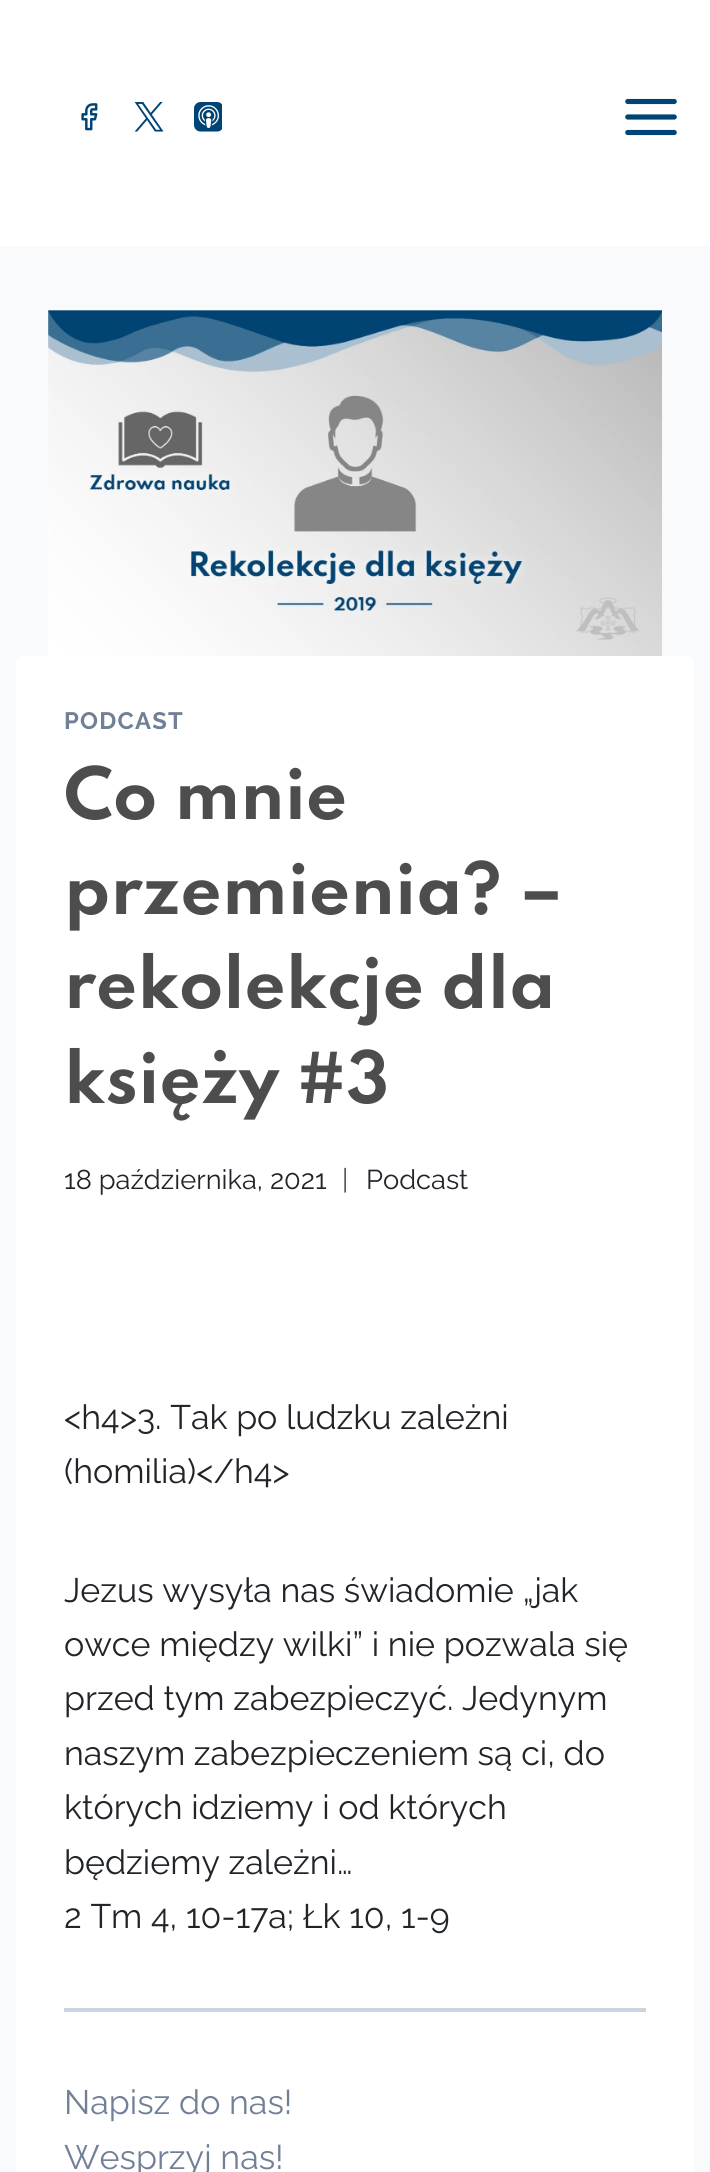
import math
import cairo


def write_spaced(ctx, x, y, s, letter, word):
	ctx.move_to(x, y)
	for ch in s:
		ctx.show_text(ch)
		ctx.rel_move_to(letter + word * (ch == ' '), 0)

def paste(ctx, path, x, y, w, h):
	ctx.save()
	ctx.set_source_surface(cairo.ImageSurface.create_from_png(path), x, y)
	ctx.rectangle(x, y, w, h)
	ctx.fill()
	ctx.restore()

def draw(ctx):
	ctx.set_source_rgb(0.969, 0.98, 0.988)
	ctx.paint()
	ctx.set_source_rgb(1, 1, 1)
	ctx.rectangle(0, 0, 710, 246)
	ctx.fill()
	paste(ctx, 'media/1.png', 81, 103, 17, 28)
	paste(ctx, 'media/2.png', 134, 102, 30, 30)
	paste(ctx, 'media/3.png', 194, 102, 28, 30)
	paste(ctx, 'media/4.png', 625, 98, 52, 38)
	paste(ctx, 'media/5.png', 48, 310, 614, 346)
	ctx.new_path()
	ctx.move_to(24, 656)
	ctx.line_to(686, 656)
	ctx.curve_to(690.5, 656, 694, 659.5, 694, 664)
	ctx.line_to(694, 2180)
	ctx.line_to(16, 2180)
	ctx.line_to(16, 664)
	ctx.curve_to(16, 659.5, 19.5, 656, 24, 656)
	ctx.close_path()
	ctx.fill()
	ctx.select_font_face('Raleway', cairo.FONT_SLANT_NORMAL, cairo.FONT_WEIGHT_BOLD)
	ctx.set_font_size(23.75)
	ctx.set_source_rgb(0.443, 0.502, 0.588)
	write_spaced(ctx, 64, 729, 'PODCAST', 1.25, 0)
	ctx.select_font_face('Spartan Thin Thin')
	ctx.set_font_size(64)
	ctx.set_source_rgb(0.302, 0.302, 0.302)
	for x, y, s in [
		(64, 819, 'Co mnie'),
		(64, 914, 'przemienia? –'),
		(64, 1008, 'rekolekcje dla'),
		(64, 1103, 'księży #3'),
	]:
		ctx.move_to(x, y)
		ctx.show_text(s)
	ctx.select_font_face('Raleway')
	ctx.set_font_size(27.25)
	ctx.set_source_rgb(0.129, 0.145, 0.161)
	ctx.move_to(64, 1189)
	ctx.show_text('18 października, 2021')
	ctx.set_source_rgb(0.302, 0.318, 0.329)
	ctx.move_to(342, 1189)
	ctx.show_text('|')
	ctx.set_source_rgb(0.129, 0.145, 0.161)
	ctx.move_to(366, 1189)
	ctx.show_text('Podcast')
	ctx.set_font_size(34)
	for x, y, s in [
		(64, 1429, '<h4>3. Tak po ludzku zależni'),
		(64, 1483, '(homilia)</h4>'),
		(64, 1602, 'Jezus wysyła nas świadomie „jak'),
		(64, 1656, 'owce między wilki” i nie pozwala się'),
		(64, 1710, 'przed tym zabezpieczyć. Jedynym'),
		(64, 1765, 'naszym zabezpieczeniem są ci, do'),
		(64, 1819, 'których idziemy i od których'),
		(64, 1874, 'będziemy zależni…'),
		(64, 1928, '2 Tm 4, 10-17a; Łk 10, 1-9'),
	]:
		ctx.move_to(x, y)
		ctx.show_text(s)
	ctx.set_source_rgb(0.796, 0.835, 0.878)
	ctx.rectangle(64, 2008, 582, 4)
	ctx.fill()
	ctx.set_source_rgb(0.443, 0.502, 0.588)
	ctx.move_to(64, 2114)
	ctx.show_text('Napisz do nas!')
	ctx.move_to(64, 2169)
	ctx.show_text('Wesprzyj nas!')


surface = cairo.ImageSurface(cairo.FORMAT_RGB24, 710, 2172)
ctx = cairo.Context(surface)
options = cairo.FontOptions()
options.set_hint_metrics(cairo.HINT_METRICS_OFF)
options.set_hint_style(cairo.HINT_STYLE_NONE)
ctx.set_font_options(options)
ctx.set_miter_limit(4)
draw(ctx)
surface.write_to_png('image.png')
